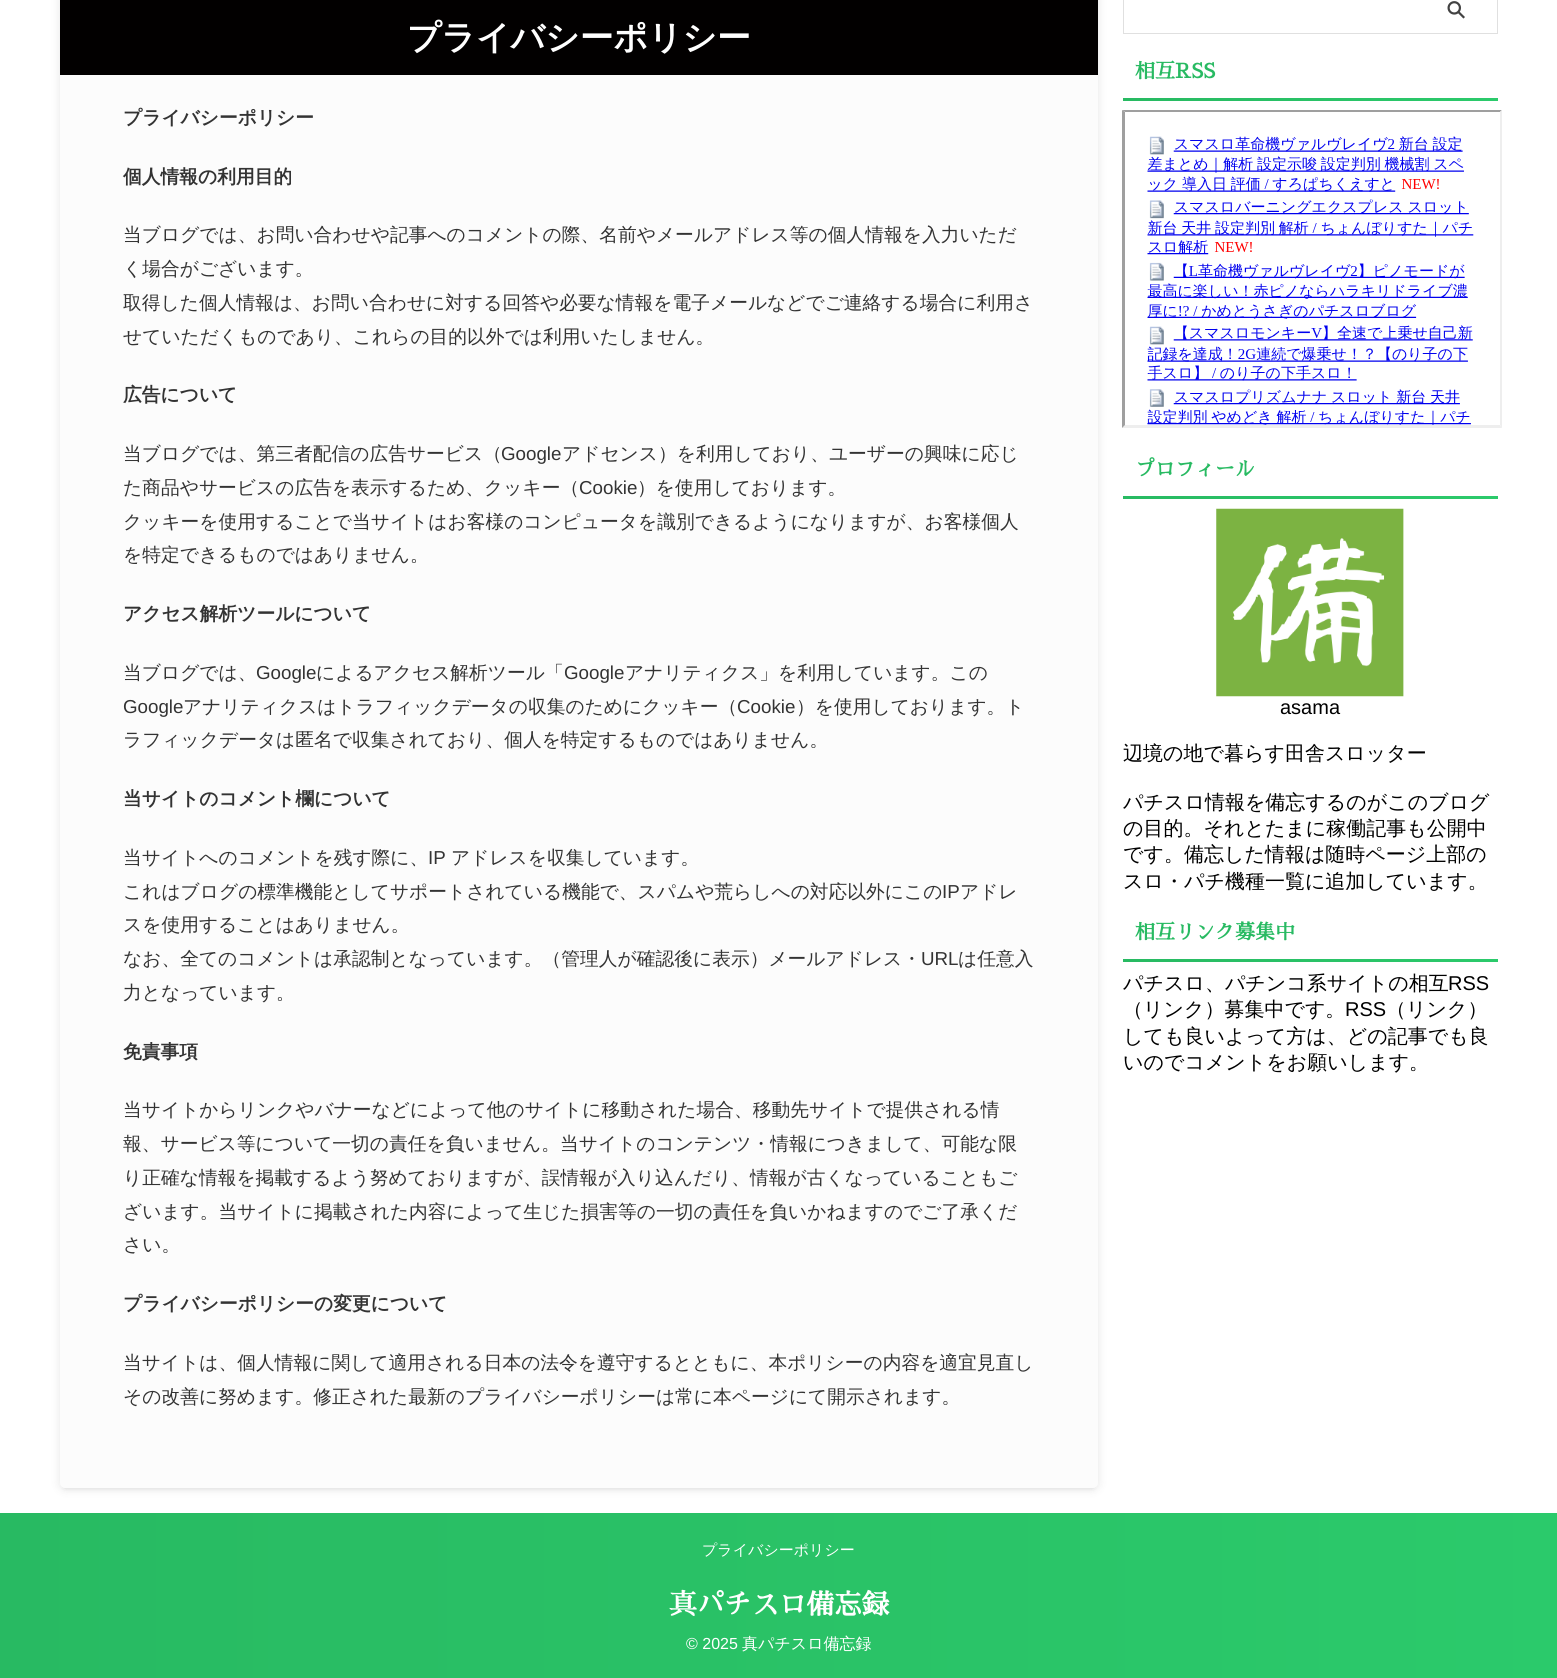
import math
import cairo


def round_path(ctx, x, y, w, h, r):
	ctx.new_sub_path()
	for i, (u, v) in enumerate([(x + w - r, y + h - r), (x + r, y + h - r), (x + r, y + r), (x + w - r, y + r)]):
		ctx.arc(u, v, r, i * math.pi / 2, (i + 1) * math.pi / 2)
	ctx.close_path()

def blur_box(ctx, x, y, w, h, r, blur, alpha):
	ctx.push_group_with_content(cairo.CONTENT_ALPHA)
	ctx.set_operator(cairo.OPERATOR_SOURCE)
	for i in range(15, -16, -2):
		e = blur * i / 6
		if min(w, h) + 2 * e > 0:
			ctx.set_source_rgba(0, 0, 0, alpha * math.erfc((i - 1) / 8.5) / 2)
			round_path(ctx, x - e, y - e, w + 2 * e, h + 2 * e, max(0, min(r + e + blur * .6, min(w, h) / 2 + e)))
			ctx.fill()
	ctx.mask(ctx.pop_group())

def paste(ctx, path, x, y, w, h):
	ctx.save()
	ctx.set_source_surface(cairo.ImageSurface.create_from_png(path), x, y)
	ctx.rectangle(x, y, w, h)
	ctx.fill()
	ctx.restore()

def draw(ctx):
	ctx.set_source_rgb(1, 1, 1)
	ctx.paint()
	ctx.set_source_rgb(0, 0, 0)
	blur_box(ctx, 65, -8, 1028, 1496, 0, 2.5, 0.1)
	blur_box(ctx, 60, -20, 1038, 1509, 5, 5, 0.1)
	ctx.set_source_rgb(0.988, 0.988, 0.988)
	round_path(ctx, 60, -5, 1038, 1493, 5)
	ctx.fill()
	ctx.set_source_rgb(0.008, 0, 0)
	ctx.rectangle(60, 0, 1038, 75)
	ctx.fill()
	ctx.select_font_face('WenQuanYi Zen Hei', cairo.FONT_SLANT_NORMAL, cairo.FONT_WEIGHT_BOLD)
	ctx.set_font_size(33.75)
	ctx.set_source_rgb(1, 1, 1)
	ctx.move_to(407, 49)
	ctx.show_text('プライバシーポリシー')
	ctx.set_font_size(18.75)
	ctx.set_source_rgb(0.2, 0.2, 0.2)
	ctx.move_to(123, 124)
	ctx.show_text('プライバシーポリシー')
	ctx.move_to(123, 183)
	ctx.show_text('個人情報の利用目的')
	ctx.select_font_face('WenQuanYi Zen Hei Medium')
	for x, y, s in [
		(123, 241, '当ブログでは、お問い合わせや記事へのコメントの際、名前やメールアドレス等の個人情報を入力いただ'),
		(123, 275, 'く場合がございます。'),
		(123, 309, '取得した個人情報は、お問い合わせに対する回答や必要な情報を電子メールなどでご連絡する場合に利用さ'),
		(123, 343, 'せていただくものであり、これらの目的以外では利用いたしません。'),
	]:
		ctx.move_to(x, y)
		ctx.show_text(s)
	ctx.select_font_face('WenQuanYi Zen Hei', cairo.FONT_SLANT_NORMAL, cairo.FONT_WEIGHT_BOLD)
	ctx.move_to(123, 401)
	ctx.show_text('広告について')
	ctx.select_font_face('WenQuanYi Zen Hei Medium')
	ctx.move_to(123, 460)
	ctx.show_text('当ブログでは、第三者配信の広告サービス（')
	ctx.select_font_face('Liberation Sans')
	ctx.move_to(501, 460)
	ctx.show_text('Google')
	ctx.select_font_face('WenQuanYi Zen Hei Medium')
	ctx.move_to(562, 460)
	ctx.show_text('アドセンス）を利用しており、ユーザーの興味に応じ')
	ctx.move_to(123, 494)
	ctx.show_text('た商品やサービスの広告を表示するため、クッキー（')
	ctx.select_font_face('Liberation Sans')
	ctx.move_to(579, 494)
	ctx.show_text('Cookie')
	ctx.select_font_face('WenQuanYi Zen Hei Medium')
	for x, y, s in [
		(637, 494, '）を使用しております。'),
		(123, 528, 'クッキーを使用することで当サイトはお客様のコンピュータを識別できるようになりますが、お客様個人'),
		(123, 561, 'を特定できるものではありません。'),
	]:
		ctx.move_to(x, y)
		ctx.show_text(s)
	ctx.select_font_face('WenQuanYi Zen Hei', cairo.FONT_SLANT_NORMAL, cairo.FONT_WEIGHT_BOLD)
	ctx.move_to(123, 620)
	ctx.show_text('アクセス解析ツールについて')
	ctx.select_font_face('WenQuanYi Zen Hei Medium')
	ctx.move_to(123, 679)
	ctx.show_text('当ブログでは、')
	ctx.select_font_face('Liberation Sans')
	ctx.move_to(256, 679)
	ctx.show_text('Google')
	ctx.select_font_face('WenQuanYi Zen Hei Medium')
	ctx.move_to(316, 679)
	ctx.show_text('によるアクセス解析ツール「')
	ctx.select_font_face('Liberation Sans')
	ctx.move_to(564, 679)
	ctx.show_text('Google')
	ctx.select_font_face('WenQuanYi Zen Hei Medium')
	ctx.move_to(625, 679)
	ctx.show_text('アナリティクス」を利用しています。この')
	ctx.select_font_face('Liberation Sans')
	ctx.move_to(123, 713)
	ctx.show_text('Google')
	ctx.select_font_face('WenQuanYi Zen Hei Medium')
	ctx.move_to(183, 713)
	ctx.show_text('アナリティクスはトラフィックデータの収集のためにクッキー（')
	ctx.select_font_face('Liberation Sans')
	ctx.move_to(737, 713)
	ctx.show_text('Cookie')
	ctx.select_font_face('WenQuanYi Zen Hei Medium')
	ctx.move_to(796, 713)
	ctx.show_text('）を使用しております。ト')
	ctx.move_to(123, 746)
	ctx.show_text('ラフィックデータは匿名で収集されており、個人を特定するものではありません。')
	ctx.select_font_face('WenQuanYi Zen Hei', cairo.FONT_SLANT_NORMAL, cairo.FONT_WEIGHT_BOLD)
	ctx.move_to(123, 805)
	ctx.show_text('当サイトのコメント欄について')
	ctx.select_font_face('WenQuanYi Zen Hei Medium')
	ctx.move_to(123, 864)
	ctx.show_text('当サイトへのコメントを残す際に、')
	ctx.select_font_face('Liberation Sans')
	ctx.move_to(428, 864)
	ctx.show_text('IP')
	ctx.select_font_face('WenQuanYi Zen Hei Medium')
	ctx.move_to(451, 864)
	ctx.show_text('アドレスを収集しています。')
	ctx.move_to(123, 898)
	ctx.show_text('これはブログの標準機能としてサポートされている機能で、スパムや荒らしへの対応以外にこの')
	ctx.select_font_face('Liberation Sans')
	ctx.move_to(942, 898)
	ctx.show_text('IP')
	ctx.select_font_face('WenQuanYi Zen Hei Medium')
	for x, y, s in [
		(960, 898, 'アドレ'),
		(123, 931, 'スを使用することはありません。'),
		(123, 965, 'なお、全てのコメントは承認制となっています。（管理人が確認後に表示）メールアドレス・'),
	]:
		ctx.move_to(x, y)
		ctx.show_text(s)
	ctx.select_font_face('Liberation Sans')
	ctx.move_to(921, 965)
	ctx.show_text('URL')
	ctx.select_font_face('WenQuanYi Zen Hei Medium')
	ctx.move_to(958, 965)
	ctx.show_text('は任意入')
	ctx.move_to(123, 999)
	ctx.show_text('力となっています。')
	ctx.select_font_face('WenQuanYi Zen Hei', cairo.FONT_SLANT_NORMAL, cairo.FONT_WEIGHT_BOLD)
	ctx.move_to(123, 1058)
	ctx.show_text('免責事項')
	ctx.select_font_face('WenQuanYi Zen Hei Medium')
	for x, y, s in [
		(123, 1116, '当サイトからリンクやバナーなどによって他のサイトに移動された場合、移動先サイトで提供される情'),
		(123, 1150, '報、サービス等について一切の責任を負いません。当サイトのコンテンツ・情報につきまして、可能な限'),
		(123, 1184, 'り正確な情報を掲載するよう努めておりますが、誤情報が入り込んだり、情報が古くなっていることもご'),
		(123, 1218, 'ざいます。当サイトに掲載された内容によって生じた損害等の一切の責任を負いかねますのでご了承くだ'),
		(123, 1251, 'さい。'),
	]:
		ctx.move_to(x, y)
		ctx.show_text(s)
	ctx.select_font_face('WenQuanYi Zen Hei', cairo.FONT_SLANT_NORMAL, cairo.FONT_WEIGHT_BOLD)
	ctx.move_to(123, 1310)
	ctx.show_text('プライバシーポリシーの変更について')
	ctx.select_font_face('WenQuanYi Zen Hei Medium')
	ctx.move_to(123, 1369)
	ctx.show_text('当サイトは、個人情報に関して適用される日本の法令を遵守するとともに、本ポリシーの内容を適宜見直し')
	ctx.move_to(123, 1403)
	ctx.show_text('その改善に努めます。修正された最新のプライバシーポリシーは常に本ページにて開示されます。')
	ctx.rectangle(1123.5, -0.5, 374, 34)
	ctx.set_source_rgb(0.878, 0.878, 0.878)
	ctx.set_line_width(1)
	ctx.stroke()
	paste(ctx, 'media/1.png', 1447, 1, 18, 18)
	ctx.select_font_face('Sawarabi Mincho', cairo.FONT_SLANT_NORMAL, cairo.FONT_WEIGHT_BOLD)
	ctx.set_font_size(20)
	ctx.set_source_rgb(0.157, 0.729, 0.384)
	ctx.move_to(1135, 78)
	ctx.show_text('相互RSS')
	gradient = cairo.LinearGradient(1498, 99, 1123, 99)
	gradient.add_color_stop_rgba(0, 0.169, 0.792, 0.42, 1)
	gradient.add_color_stop_rgba(1, 0.157, 0.729, 0.384, 1)
	ctx.set_source(gradient)
	ctx.rectangle(1123, 98, 375, 3)
	ctx.fill()
	ctx.set_source_rgb(0.624, 0.624, 0.624)
	ctx.new_path()
	ctx.move_to(1122, 110)
	ctx.line_to(1502, 110)
	ctx.line_to(1500, 112)
	ctx.line_to(1125, 112)
	ctx.close_path()
	ctx.fill()
	ctx.set_source_rgb(0.933, 0.933, 0.933)
	ctx.new_path()
	ctx.move_to(1502, 110)
	ctx.line_to(1502, 428)
	ctx.line_to(1500, 425)
	ctx.line_to(1500, 112)
	ctx.close_path()
	ctx.fill()
	ctx.new_path()
	ctx.move_to(1502, 428)
	ctx.line_to(1122, 428)
	ctx.line_to(1125, 425)
	ctx.line_to(1500, 425)
	ctx.close_path()
	ctx.fill()
	ctx.set_source_rgb(0.624, 0.624, 0.624)
	ctx.new_path()
	ctx.move_to(1122, 428)
	ctx.line_to(1122, 110)
	ctx.line_to(1125, 112)
	ctx.line_to(1125, 425)
	ctx.close_path()
	ctx.fill()
	paste(ctx, 'media/2.png', 1147, 136, 327, 289)
	ctx.set_source_rgb(0.157, 0.729, 0.384)
	ctx.move_to(1135, 476)
	ctx.show_text('プロフィール')
	gradient = cairo.LinearGradient(1498, 498, 1123, 498)
	gradient.add_color_stop_rgba(0, 0.169, 0.792, 0.42, 1)
	gradient.add_color_stop_rgba(1, 0.157, 0.729, 0.384, 1)
	ctx.set_source(gradient)
	ctx.rectangle(1123, 496, 375, 3)
	ctx.fill()
	paste(ctx, 'media/3.png', 1216, 508, 188, 189)
	ctx.select_font_face('Liberation Sans')
	ctx.set_source_rgb(0, 0, 0)
	ctx.move_to(1280, 714)
	ctx.show_text('asama')
	ctx.select_font_face('WenQuanYi Zen Hei Medium')
	for x, y, s in [
		(1123, 760, '辺境の地で暮らす田舎スロッター'),
		(1123, 809, 'パチスロ情報を備忘するのがこのブログ'),
		(1123, 835, 'の目的。それとたまに稼働記事も公開中'),
		(1123, 861, 'です。備忘した情報は随時ページ上部の'),
		(1123, 888, 'スロ・パチ機種一覧に追加しています。'),
	]:
		ctx.move_to(x, y)
		ctx.show_text(s)
	ctx.select_font_face('Sawarabi Mincho', cairo.FONT_SLANT_NORMAL, cairo.FONT_WEIGHT_BOLD)
	ctx.set_source_rgb(0.157, 0.729, 0.384)
	ctx.move_to(1135, 939)
	ctx.show_text('相互リンク募集中')
	gradient = cairo.LinearGradient(1498, 960, 1123, 960)
	gradient.add_color_stop_rgba(0, 0.169, 0.792, 0.42, 1)
	gradient.add_color_stop_rgba(1, 0.157, 0.729, 0.384, 1)
	ctx.set_source(gradient)
	ctx.rectangle(1123, 959, 375, 3)
	ctx.fill()
	ctx.select_font_face('WenQuanYi Zen Hei Medium')
	ctx.set_source_rgb(0, 0, 0)
	ctx.move_to(1123, 990)
	ctx.show_text('パチスロ、パチンコ系サイトの相互')
	ctx.select_font_face('Liberation Sans')
	ctx.move_to(1448, 990)
	ctx.show_text('RSS')
	ctx.select_font_face('WenQuanYi Zen Hei Medium')
	ctx.move_to(1123, 1016)
	ctx.show_text('（リンク）募集中です。')
	ctx.select_font_face('Liberation Sans')
	ctx.move_to(1345, 1016)
	ctx.show_text('RSS')
	ctx.select_font_face('WenQuanYi Zen Hei Medium')
	for x, y, s in [
		(1386, 1016, '（リンク）'),
		(1123, 1043, 'しても良いよって方は、どの記事でも良'),
		(1123, 1069, 'いのでコメントをお願いします。'),
	]:
		ctx.move_to(x, y)
		ctx.show_text(s)
	gradient = cairo.LinearGradient(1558, 1596, 0, 1596)
	gradient.add_color_stop_rgba(0, 0.169, 0.792, 0.42, 1)
	gradient.add_color_stop_rgba(1, 0.157, 0.729, 0.384, 1)
	ctx.set_source(gradient)
	ctx.rectangle(0, 1513, 1557, 165)
	ctx.fill()
	ctx.set_font_size(15)
	ctx.set_source_rgb(1, 1, 1)
	ctx.move_to(702, 1555)
	ctx.show_text('プライバシーポリシー')
	ctx.select_font_face('Sawarabi Mincho', cairo.FONT_SLANT_NORMAL, cairo.FONT_WEIGHT_BOLD)
	ctx.set_font_size(27.5)
	ctx.move_to(669, 1614)
	ctx.show_text('真パチスロ備忘録')
	ctx.select_font_face('Liberation Sans')
	ctx.set_font_size(16)
	ctx.move_to(686, 1649)
	ctx.show_text('© 2025')
	ctx.select_font_face('WenQuanYi Zen Hei Medium')
	ctx.move_to(742, 1649)
	ctx.show_text('真パチスロ備忘録')


surface = cairo.ImageSurface(cairo.FORMAT_RGB24, 1557, 1678)
ctx = cairo.Context(surface)
options = cairo.FontOptions()
options.set_hint_metrics(cairo.HINT_METRICS_OFF)
options.set_hint_style(cairo.HINT_STYLE_NONE)
ctx.set_font_options(options)
ctx.set_miter_limit(4)
draw(ctx)
surface.write_to_png('image.png')
